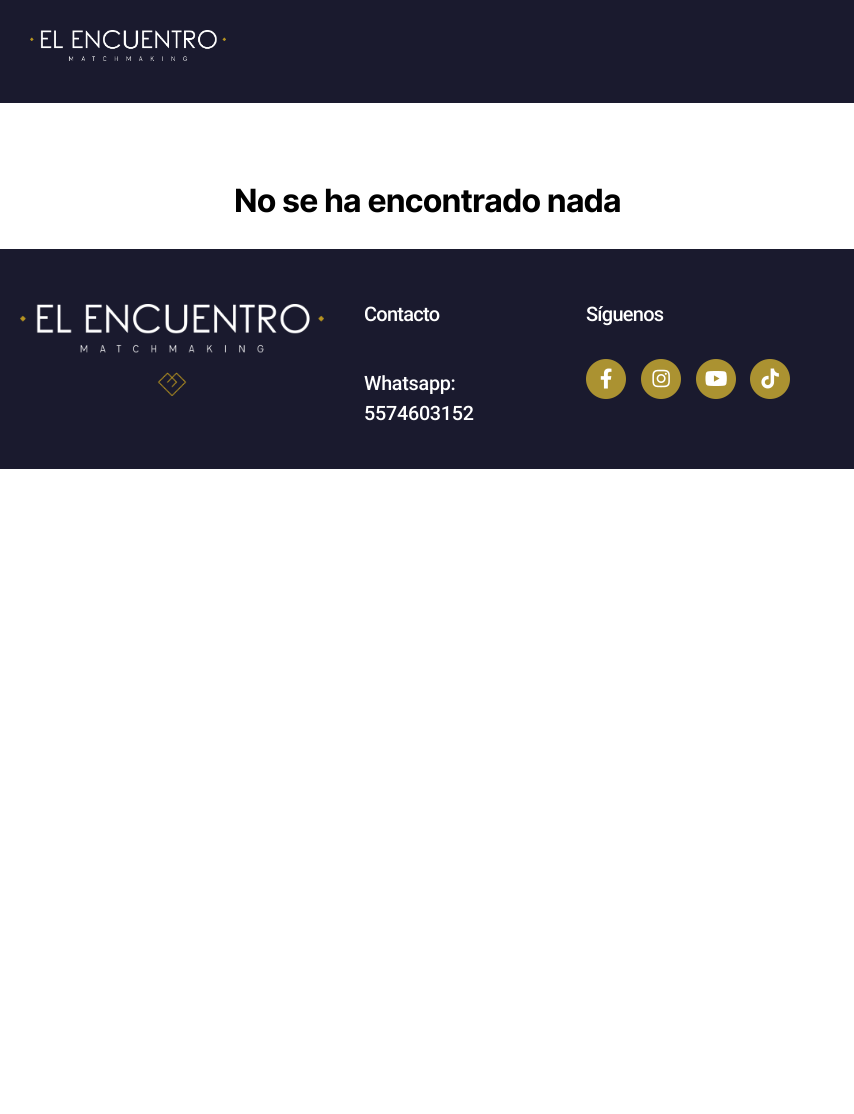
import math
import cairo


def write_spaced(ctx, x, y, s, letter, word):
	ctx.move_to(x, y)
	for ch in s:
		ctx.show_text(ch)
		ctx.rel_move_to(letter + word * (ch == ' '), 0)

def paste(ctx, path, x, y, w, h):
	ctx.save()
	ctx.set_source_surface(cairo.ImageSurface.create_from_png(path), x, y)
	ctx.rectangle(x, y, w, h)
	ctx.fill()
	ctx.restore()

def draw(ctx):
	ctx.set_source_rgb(1, 1, 1)
	ctx.paint()
	ctx.set_source_rgb(0.102, 0.102, 0.18)
	ctx.rectangle(0, 0, 854, 103)
	ctx.fill()
	paste(ctx, 'media/1.png', 30, 30, 196, 31)
	ctx.select_font_face('Inter', cairo.FONT_SLANT_NORMAL, cairo.FONT_WEIGHT_BOLD)
	ctx.set_font_size(32)
	ctx.set_source_rgb(0, 0, 0)
	write_spaced(ctx, 234, 212, 'No se ha encontrado nada', -0.85, 0)
	ctx.set_source_rgb(0.102, 0.102, 0.18)
	ctx.rectangle(0, 249, 854, 220)
	ctx.fill()
	paste(ctx, 'media/2.png', 20, 304, 304, 92)
	ctx.select_font_face('Roboto Medium')
	ctx.set_font_size(20)
	ctx.set_source_rgb(1, 1, 1)
	write_spaced(ctx, 364, 321, 'Contacto', -0.75, 0)
	ctx.set_font_size(19.75)
	write_spaced(ctx, 364, 390, 'Whatsapp:', -0.25, 0)
	write_spaced(ctx, 364, 420, '5574603152', -0.25, 0)
	ctx.set_font_size(20)
	write_spaced(ctx, 586, 321, 'Síguenos', -0.75, 0)
	ctx.set_source_rgb(0.671, 0.573, 0.192)
	ctx.new_path()
	ctx.arc(606, 379, 20, 0, 2 * math.pi)
	ctx.fill()
	paste(ctx, 'media/3.png', 600, 368, 12, 21)
	ctx.arc(661, 379, 20, 0, 2 * math.pi)
	ctx.fill()
	paste(ctx, 'media/4.png', 652, 369, 18, 19)
	ctx.arc(716, 379, 20, 0, 2 * math.pi)
	ctx.fill()
	paste(ctx, 'media/5.png', 705, 371, 22, 15)
	ctx.arc(770, 379, 20, 0, 2 * math.pi)
	ctx.fill()
	paste(ctx, 'media/6.png', 761, 368, 18, 21)


surface = cairo.ImageSurface(cairo.FORMAT_RGB24, 854, 1114)
ctx = cairo.Context(surface)
options = cairo.FontOptions()
options.set_hint_metrics(cairo.HINT_METRICS_OFF)
options.set_hint_style(cairo.HINT_STYLE_NONE)
ctx.set_font_options(options)
ctx.set_miter_limit(4)
draw(ctx)
surface.write_to_png('image.png')
